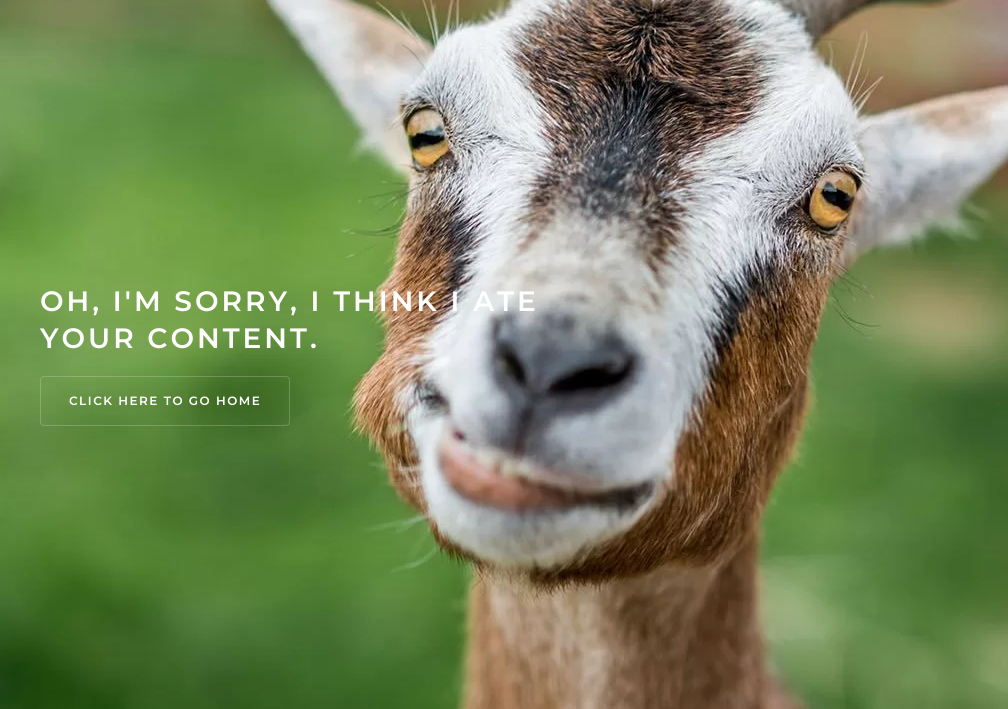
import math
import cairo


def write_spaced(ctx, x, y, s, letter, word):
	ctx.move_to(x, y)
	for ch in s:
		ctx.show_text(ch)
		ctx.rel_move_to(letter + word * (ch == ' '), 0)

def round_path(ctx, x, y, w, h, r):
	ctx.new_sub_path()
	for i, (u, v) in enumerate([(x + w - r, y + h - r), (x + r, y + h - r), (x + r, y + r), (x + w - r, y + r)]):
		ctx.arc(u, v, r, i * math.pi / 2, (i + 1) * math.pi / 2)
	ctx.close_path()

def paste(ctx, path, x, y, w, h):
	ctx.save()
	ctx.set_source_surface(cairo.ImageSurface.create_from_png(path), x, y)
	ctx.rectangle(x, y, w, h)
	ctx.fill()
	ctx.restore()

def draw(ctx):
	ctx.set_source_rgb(1, 1, 1)
	ctx.paint()
	paste(ctx, 'media/1.png', 0, 0, 1008, 709)
	ctx.select_font_face('Montserrat Thin')
	ctx.set_font_size(28)
	ctx.set_source_rgb(1, 1, 1)
	write_spaced(ctx, 40, 311, 'OH, I\'M SORRY, I THINK I ATE', 3, 0)
	write_spaced(ctx, 40, 348, 'YOUR CONTENT.', 3, 0)
	round_path(ctx, 40.5, 376.5, 249, 49, 3.5)
	ctx.set_source_rgba(1, 1, 1, 0.2)
	ctx.set_line_width(1)
	ctx.stroke()
	ctx.set_font_size(12)
	ctx.set_source_rgb(1, 1, 1)
	write_spaced(ctx, 69, 405, 'CLICK HERE TO GO HOME', 1.5, 0)


surface = cairo.ImageSurface(cairo.FORMAT_RGB24, 1008, 709)
ctx = cairo.Context(surface)
options = cairo.FontOptions()
options.set_hint_metrics(cairo.HINT_METRICS_OFF)
options.set_hint_style(cairo.HINT_STYLE_NONE)
ctx.set_font_options(options)
ctx.set_miter_limit(4)
draw(ctx)
surface.write_to_png('image.png')
